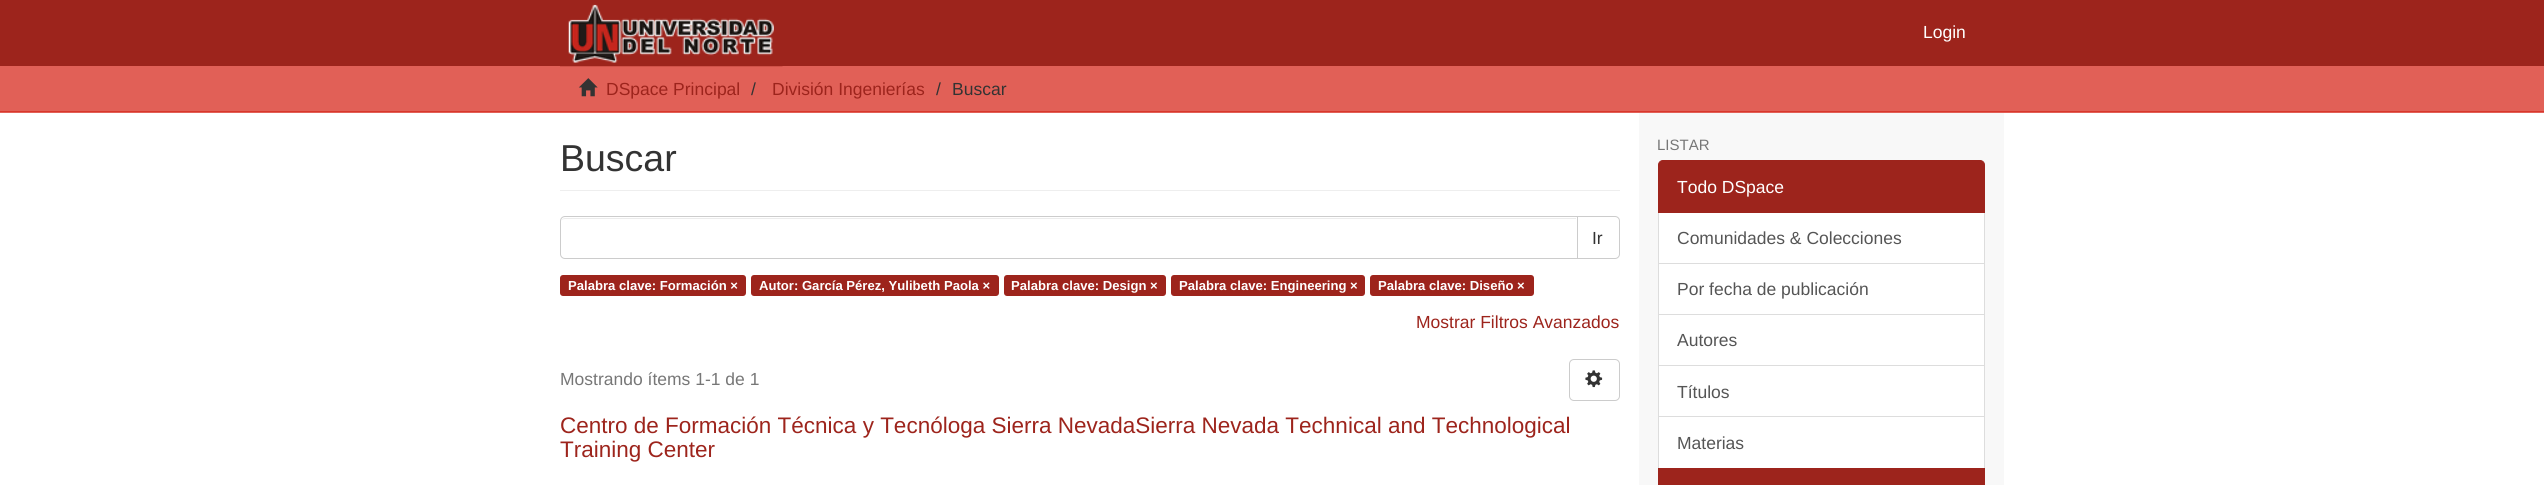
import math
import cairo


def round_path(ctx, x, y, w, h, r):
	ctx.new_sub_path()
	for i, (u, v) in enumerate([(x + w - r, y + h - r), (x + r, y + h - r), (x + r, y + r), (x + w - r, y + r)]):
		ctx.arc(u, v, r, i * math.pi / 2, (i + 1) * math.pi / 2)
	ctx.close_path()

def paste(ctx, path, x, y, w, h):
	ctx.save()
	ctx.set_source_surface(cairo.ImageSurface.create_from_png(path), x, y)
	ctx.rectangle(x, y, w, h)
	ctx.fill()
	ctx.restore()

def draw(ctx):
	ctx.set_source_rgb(1, 1, 1)
	ctx.paint()
	ctx.set_source_rgb(0.616, 0.141, 0.11)
	ctx.rectangle(0, 0, 2544, 66)
	ctx.fill()
	ctx.set_source_rgb(0.882, 0.376, 0.341)
	ctx.rectangle(0, 66, 2544, 47)
	ctx.fill()
	paste(ctx, 'media/1.png', 560, 4, 223, 63)
	ctx.select_font_face('Liberation Sans')
	ctx.set_font_size(17.5)
	ctx.set_source_rgb(1, 1, 1)
	ctx.move_to(1923, 38)
	ctx.show_text('Login')
	ctx.set_source_rgb(0.851, 0.216, 0.173)
	ctx.rectangle(0, 111, 2544, 1)
	ctx.fill()
	paste(ctx, 'media/2.png', 578, 78, 20, 19)
	ctx.set_source_rgb(0.616, 0.141, 0.11)
	ctx.move_to(606, 95)
	ctx.show_text('DSpace Principal')
	ctx.set_source_rgb(0.2, 0.2, 0.2)
	ctx.move_to(751, 95)
	ctx.show_text('/')
	ctx.set_source_rgb(0.616, 0.141, 0.11)
	ctx.move_to(772, 95)
	ctx.show_text('División Ingenierías')
	ctx.set_source_rgb(0.2, 0.2, 0.2)
	ctx.move_to(936, 95)
	ctx.show_text('/')
	ctx.move_to(952, 95)
	ctx.show_text('Buscar')
	ctx.set_source_rgb(0.969, 0.969, 0.969)
	ctx.rectangle(1639, 113, 365, 372)
	ctx.fill()
	ctx.set_source_rgb(0.933, 0.933, 0.933)
	ctx.rectangle(560, 190, 1060, 1)
	ctx.fill()
	ctx.set_font_size(37.5)
	ctx.set_source_rgb(0.2, 0.2, 0.2)
	ctx.move_to(560, 171)
	ctx.show_text('Buscar')
	ctx.new_path()
	ctx.move_to(1576.5, 216.5)
	ctx.line_to(1615, 216.5)
	ctx.curve_to(1617.5, 216.5, 1619.5, 218.5, 1619.5, 221)
	ctx.line_to(1619.5, 254)
	ctx.curve_to(1619.5, 256.5, 1617.5, 258.5, 1615, 258.5)
	ctx.line_to(1576.5, 258.5)
	ctx.close_path()
	ctx.set_source_rgb(0.8, 0.8, 0.8)
	ctx.set_line_width(1)
	ctx.stroke()
	ctx.set_source_rgb(1, 1, 1)
	ctx.new_path()
	ctx.move_to(565, 216)
	ctx.line_to(1578, 216)
	ctx.line_to(1578, 259)
	ctx.line_to(565, 259)
	ctx.curve_to(562, 259, 560, 257, 560, 254)
	ctx.line_to(560, 221)
	ctx.curve_to(560, 218, 562, 216, 565, 216)
	ctx.close_path()
	ctx.fill()
	ctx.set_source_rgb(0.925, 0.925, 0.925)
	ctx.new_path()
	ctx.move_to(565, 219)
	ctx.line_to(1576, 219)
	ctx.line_to(1576, 218)
	ctx.line_to(565, 218)
	ctx.curve_to(563, 218, 561, 220, 561, 222)
	ctx.curve_to(561, 220, 563, 219, 565, 219)
	ctx.close_path()
	ctx.fill()
	ctx.new_path()
	ctx.move_to(565, 216.5)
	ctx.line_to(1577.5, 216.5)
	ctx.line_to(1577.5, 258.5)
	ctx.line_to(565, 258.5)
	ctx.curve_to(562.5, 258.5, 560.5, 256.5, 560.5, 254)
	ctx.line_to(560.5, 221)
	ctx.curve_to(560.5, 218.5, 562.5, 216.5, 565, 216.5)
	ctx.close_path()
	ctx.set_source_rgb(0.8, 0.8, 0.8)
	ctx.stroke()
	ctx.set_font_size(17.5)
	ctx.set_source_rgb(0.2, 0.2, 0.2)
	ctx.move_to(1592, 244)
	ctx.show_text('Ir')
	ctx.set_source_rgb(0.616, 0.141, 0.11)
	round_path(ctx, 560, 275, 186, 21, 3)
	ctx.fill()
	ctx.select_font_face('Liberation Sans', cairo.FONT_SLANT_NORMAL, cairo.FONT_WEIGHT_BOLD)
	ctx.set_font_size(13.1)
	ctx.set_source_rgb(1, 1, 1)
	ctx.move_to(568, 290)
	ctx.show_text('Palabra clave: Formación ×')
	ctx.set_source_rgb(0.616, 0.141, 0.11)
	round_path(ctx, 751, 275, 248, 21, 3)
	ctx.fill()
	ctx.set_source_rgb(1, 1, 1)
	ctx.move_to(759, 290)
	ctx.show_text('Autor: García Pérez, Yulibeth Paola ×')
	ctx.set_source_rgb(0.616, 0.141, 0.11)
	round_path(ctx, 1004, 275, 162, 21, 3)
	ctx.fill()
	ctx.set_source_rgb(1, 1, 1)
	ctx.move_to(1011, 290)
	ctx.show_text('Palabra clave: Design ×')
	ctx.set_source_rgb(0.616, 0.141, 0.11)
	round_path(ctx, 1171, 275, 194, 21, 3)
	ctx.fill()
	ctx.set_source_rgb(1, 1, 1)
	ctx.move_to(1179, 290)
	ctx.show_text('Palabra clave: Engineering ×')
	ctx.set_source_rgb(0.616, 0.141, 0.11)
	round_path(ctx, 1370, 275, 164, 21, 3)
	ctx.fill()
	ctx.set_source_rgb(1, 1, 1)
	ctx.move_to(1378, 290)
	ctx.show_text('Palabra clave: Diseño ×')
	ctx.select_font_face('Liberation Sans')
	ctx.set_font_size(17.5)
	ctx.set_source_rgb(0.616, 0.141, 0.11)
	ctx.move_to(1416, 328)
	ctx.show_text('Mostrar Filtros Avanzados')
	ctx.set_source_rgb(0.467, 0.467, 0.467)
	ctx.move_to(560, 385)
	ctx.show_text('Mostrando ítems 1-1 de 1')
	round_path(ctx, 1569.5, 359.5, 50, 41, 4.5)
	ctx.set_source_rgb(0.8, 0.8, 0.8)
	ctx.stroke()
	paste(ctx, 'media/3.png', 1585, 370, 18, 18)
	ctx.set_font_size(22.5)
	ctx.set_source_rgb(0.616, 0.141, 0.11)
	ctx.move_to(560, 433)
	ctx.show_text('Centro de Formación Técnica y Tecnóloga Sierra NevadaSierra Nevada Technical and Technological')
	ctx.move_to(560, 457)
	ctx.show_text('Training Center')
	ctx.set_font_size(15)
	ctx.set_source_rgb(0.467, 0.467, 0.467)
	ctx.move_to(1657, 150)
	ctx.show_text('LISTAR')
	ctx.set_source_rgb(1, 1, 1)
	ctx.rectangle(1659, 213, 325, 50)
	ctx.fill()
	ctx.rectangle(1658.5, 211.5, 326, 52)
	ctx.set_source_rgb(0.867, 0.867, 0.867)
	ctx.stroke()
	ctx.set_source_rgb(0.616, 0.141, 0.11)
	ctx.new_path()
	ctx.move_to(1663, 160.5)
	ctx.line_to(1980, 160.5)
	ctx.curve_to(1982.5, 160.5, 1984.5, 162.5, 1984.5, 165)
	ctx.line_to(1984.5, 212.5)
	ctx.line_to(1658.5, 212.5)
	ctx.line_to(1658.5, 165)
	ctx.curve_to(1658.5, 162.5, 1660.5, 160.5, 1663, 160.5)
	ctx.close_path()
	ctx.fill_preserve()
	ctx.stroke()
	ctx.set_font_size(17.5)
	ctx.set_source_rgb(1, 1, 1)
	ctx.move_to(1677, 193)
	ctx.show_text('Todo DSpace')
	ctx.set_source_rgb(0.333, 0.333, 0.333)
	ctx.move_to(1677, 244)
	ctx.show_text('Comunidades & Colecciones')
	ctx.set_source_rgb(1, 1, 1)
	ctx.rectangle(1658.5, 263.5, 326, 51)
	ctx.fill_preserve()
	ctx.set_source_rgb(0.867, 0.867, 0.867)
	ctx.stroke()
	ctx.set_source_rgb(0.333, 0.333, 0.333)
	ctx.move_to(1677, 295)
	ctx.show_text('Por fecha de publicación')
	ctx.set_source_rgb(1, 1, 1)
	ctx.rectangle(1658.5, 314.5, 326, 51)
	ctx.fill_preserve()
	ctx.set_source_rgb(0.867, 0.867, 0.867)
	ctx.stroke()
	ctx.set_source_rgb(0.333, 0.333, 0.333)
	ctx.move_to(1677, 346)
	ctx.show_text('Autores')
	ctx.set_source_rgb(1, 1, 1)
	ctx.rectangle(1659, 366, 325, 50)
	ctx.fill()
	ctx.rectangle(1658.5, 365.5, 326, 52)
	ctx.set_source_rgb(0.867, 0.867, 0.867)
	ctx.stroke()
	ctx.set_source_rgb(0.333, 0.333, 0.333)
	ctx.move_to(1677, 398)
	ctx.show_text('Títulos')
	ctx.set_source_rgb(1, 1, 1)
	ctx.rectangle(1658.5, 416.5, 326, 52)
	ctx.fill_preserve()
	ctx.set_source_rgb(0.867, 0.867, 0.867)
	ctx.stroke()
	ctx.set_source_rgb(0.333, 0.333, 0.333)
	ctx.move_to(1677, 449)
	ctx.show_text('Materias')
	ctx.set_source_rgb(0.616, 0.141, 0.11)
	ctx.rectangle(1658, 468, 327, 17)
	ctx.fill()


surface = cairo.ImageSurface(cairo.FORMAT_RGB24, 2544, 485)
ctx = cairo.Context(surface)
options = cairo.FontOptions()
options.set_hint_metrics(cairo.HINT_METRICS_OFF)
options.set_hint_style(cairo.HINT_STYLE_NONE)
ctx.set_font_options(options)
ctx.set_miter_limit(4)
draw(ctx)
surface.write_to_png('image.png')
